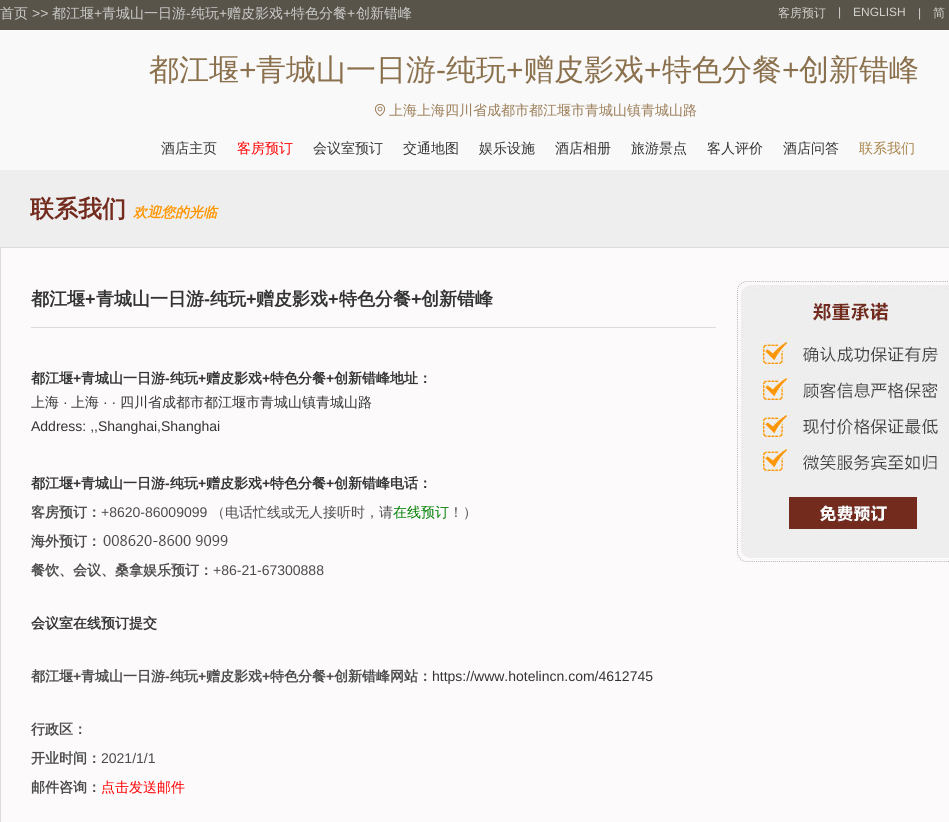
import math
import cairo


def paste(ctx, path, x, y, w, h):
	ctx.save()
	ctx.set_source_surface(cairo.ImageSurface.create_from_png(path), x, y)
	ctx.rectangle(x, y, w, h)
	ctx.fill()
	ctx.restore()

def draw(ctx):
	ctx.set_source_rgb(0.976, 0.976, 0.976)
	ctx.paint()
	ctx.set_source_rgb(0.345, 0.329, 0.286)
	ctx.rectangle(0, 0, 949, 30)
	ctx.fill()
	ctx.select_font_face('WenQuanYi Zen Hei Medium')
	ctx.set_font_size(14)
	ctx.set_source_rgb(0.8, 0.8, 0.8)
	ctx.move_to(0, 18)
	ctx.show_text('首页')
	ctx.select_font_face('Liberation Sans')
	ctx.move_to(32, 18)
	ctx.show_text('>>')
	ctx.select_font_face('WenQuanYi Zen Hei Medium')
	ctx.move_to(52, 18)
	ctx.show_text('都江堰')
	ctx.select_font_face('Liberation Sans')
	ctx.move_to(94, 18)
	ctx.show_text('+')
	ctx.select_font_face('WenQuanYi Zen Hei Medium')
	ctx.move_to(102, 18)
	ctx.show_text('青城山一日游')
	ctx.select_font_face('Liberation Sans')
	ctx.move_to(186, 18)
	ctx.show_text('-')
	ctx.select_font_face('WenQuanYi Zen Hei Medium')
	ctx.move_to(191, 18)
	ctx.show_text('纯玩')
	ctx.select_font_face('Liberation Sans')
	ctx.move_to(219, 18)
	ctx.show_text('+')
	ctx.select_font_face('WenQuanYi Zen Hei Medium')
	ctx.move_to(227, 18)
	ctx.show_text('赠皮影戏')
	ctx.select_font_face('Liberation Sans')
	ctx.move_to(283, 18)
	ctx.show_text('+')
	ctx.select_font_face('WenQuanYi Zen Hei Medium')
	ctx.move_to(291, 18)
	ctx.show_text('特色分餐')
	ctx.select_font_face('Liberation Sans')
	ctx.move_to(347, 18)
	ctx.show_text('+')
	ctx.select_font_face('WenQuanYi Zen Hei Medium')
	ctx.move_to(356, 18)
	ctx.show_text('创新错峰')
	ctx.set_font_size(12)
	ctx.set_source_rgb(0.827, 0.824, 0.8)
	ctx.move_to(778, 17)
	ctx.show_text('客房预订')
	ctx.select_font_face('Liberation Sans')
	for x, y, s in [
		(838, 16, '|'),
		(853, 16, 'ENGLISH'),
		(918, 17, '|'),
	]:
		ctx.move_to(x, y)
		ctx.show_text(s)
	ctx.select_font_face('WenQuanYi Zen Hei Medium')
	ctx.move_to(933, 17)
	ctx.show_text('简')
	ctx.set_font_size(30)
	ctx.set_source_rgb(0.541, 0.439, 0.298)
	ctx.move_to(149, 80)
	ctx.show_text('都江堰')
	ctx.select_font_face('Liberation Sans')
	ctx.move_to(239, 80)
	ctx.show_text('+')
	ctx.select_font_face('WenQuanYi Zen Hei Medium')
	ctx.move_to(256, 80)
	ctx.show_text('青城山一日游')
	ctx.select_font_face('Liberation Sans')
	ctx.move_to(436, 80)
	ctx.show_text('-')
	ctx.select_font_face('WenQuanYi Zen Hei Medium')
	ctx.move_to(446, 80)
	ctx.show_text('纯玩')
	ctx.select_font_face('Liberation Sans')
	ctx.move_to(506, 80)
	ctx.show_text('+')
	ctx.select_font_face('WenQuanYi Zen Hei Medium')
	ctx.move_to(524, 80)
	ctx.show_text('赠皮影戏')
	ctx.select_font_face('Liberation Sans')
	ctx.move_to(644, 80)
	ctx.show_text('+')
	ctx.select_font_face('WenQuanYi Zen Hei Medium')
	ctx.move_to(662, 80)
	ctx.show_text('特色分餐')
	ctx.select_font_face('Liberation Sans')
	ctx.move_to(782, 80)
	ctx.show_text('+')
	ctx.select_font_face('WenQuanYi Zen Hei Medium')
	ctx.move_to(799, 80)
	ctx.show_text('创新错峰')
	paste(ctx, 'media/1.png', 374, 103, 12, 13)
	ctx.set_font_size(14)
	ctx.set_source_rgb(0.608, 0.49, 0.341)
	ctx.move_to(389, 115)
	ctx.show_text('上海上海四川省成都市都江堰市青城山镇青城山路')
	ctx.set_source_rgb(0.2, 0.2, 0.2)
	ctx.move_to(161, 153)
	ctx.show_text('酒店主页')
	ctx.set_source_rgb(1, 0, 0)
	ctx.move_to(237, 153)
	ctx.show_text('客房预订')
	ctx.set_source_rgb(0.2, 0.2, 0.2)
	for x, y, s in [
		(313, 153, '会议室预订'),
		(403, 153, '交通地图'),
		(479, 153, '娱乐设施'),
		(555, 153, '酒店相册'),
		(631, 153, '旅游景点'),
		(707, 153, '客人评价'),
		(783, 153, '酒店问答'),
	]:
		ctx.move_to(x, y)
		ctx.show_text(s)
	ctx.set_source_rgb(0.659, 0.514, 0.286)
	ctx.move_to(859, 153)
	ctx.show_text('联系我们')
	ctx.set_source_rgb(0.933, 0.933, 0.933)
	ctx.rectangle(0, 170, 949, 77)
	ctx.fill()
	ctx.select_font_face('WenQuanYi Zen Hei', cairo.FONT_SLANT_NORMAL, cairo.FONT_WEIGHT_BOLD)
	ctx.set_font_size(24)
	ctx.set_source_rgb(0.451, 0.169, 0.114)
	ctx.move_to(30, 217)
	ctx.show_text('联系我们')
	ctx.select_font_face('WenQuanYi Zen Hei', cairo.FONT_SLANT_ITALIC, cairo.FONT_WEIGHT_BOLD)
	ctx.set_font_size(14)
	ctx.set_source_rgb(1, 0.588, 0)
	ctx.move_to(133, 217)
	ctx.show_text('欢迎您的光临')
	ctx.set_source_rgb(0.988, 0.98, 0.98)
	ctx.rectangle(0.5, 247.5, 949, 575)
	ctx.fill_preserve()
	ctx.set_source_rgb(0.863, 0.863, 0.863)
	ctx.set_line_width(1)
	ctx.stroke()
	ctx.rectangle(31, 327, 685, 1)
	ctx.fill()
	ctx.select_font_face('WenQuanYi Zen Hei', cairo.FONT_SLANT_NORMAL, cairo.FONT_WEIGHT_BOLD)
	ctx.set_font_size(18)
	ctx.set_source_rgb(0.2, 0.2, 0.2)
	ctx.move_to(31, 305)
	ctx.show_text('都江堰')
	ctx.select_font_face('Liberation Sans', cairo.FONT_SLANT_NORMAL, cairo.FONT_WEIGHT_BOLD)
	ctx.move_to(85, 305)
	ctx.show_text('+')
	ctx.select_font_face('WenQuanYi Zen Hei', cairo.FONT_SLANT_NORMAL, cairo.FONT_WEIGHT_BOLD)
	ctx.move_to(96, 305)
	ctx.show_text('青城山一日游')
	ctx.select_font_face('Liberation Sans', cairo.FONT_SLANT_NORMAL, cairo.FONT_WEIGHT_BOLD)
	ctx.move_to(204, 305)
	ctx.show_text('-')
	ctx.select_font_face('WenQuanYi Zen Hei', cairo.FONT_SLANT_NORMAL, cairo.FONT_WEIGHT_BOLD)
	ctx.move_to(210, 305)
	ctx.show_text('纯玩')
	ctx.select_font_face('Liberation Sans', cairo.FONT_SLANT_NORMAL, cairo.FONT_WEIGHT_BOLD)
	ctx.move_to(246, 305)
	ctx.show_text('+')
	ctx.select_font_face('WenQuanYi Zen Hei', cairo.FONT_SLANT_NORMAL, cairo.FONT_WEIGHT_BOLD)
	ctx.move_to(256, 305)
	ctx.show_text('赠皮影戏')
	ctx.select_font_face('Liberation Sans', cairo.FONT_SLANT_NORMAL, cairo.FONT_WEIGHT_BOLD)
	ctx.move_to(328, 305)
	ctx.show_text('+')
	ctx.select_font_face('WenQuanYi Zen Hei', cairo.FONT_SLANT_NORMAL, cairo.FONT_WEIGHT_BOLD)
	ctx.move_to(339, 305)
	ctx.show_text('特色分餐')
	ctx.select_font_face('Liberation Sans', cairo.FONT_SLANT_NORMAL, cairo.FONT_WEIGHT_BOLD)
	ctx.move_to(411, 305)
	ctx.show_text('+')
	ctx.select_font_face('WenQuanYi Zen Hei', cairo.FONT_SLANT_NORMAL, cairo.FONT_WEIGHT_BOLD)
	ctx.move_to(421, 305)
	ctx.show_text('创新错峰')
	paste(ctx, 'media/2.png', 736, 281, 213, 281)
	ctx.set_font_size(14)
	ctx.move_to(31, 383)
	ctx.show_text('都江堰')
	ctx.select_font_face('Liberation Sans', cairo.FONT_SLANT_NORMAL, cairo.FONT_WEIGHT_BOLD)
	ctx.move_to(73, 383)
	ctx.show_text('+')
	ctx.select_font_face('WenQuanYi Zen Hei', cairo.FONT_SLANT_NORMAL, cairo.FONT_WEIGHT_BOLD)
	ctx.move_to(81, 383)
	ctx.show_text('青城山一日游')
	ctx.select_font_face('Liberation Sans', cairo.FONT_SLANT_NORMAL, cairo.FONT_WEIGHT_BOLD)
	ctx.move_to(165, 383)
	ctx.show_text('-')
	ctx.select_font_face('WenQuanYi Zen Hei', cairo.FONT_SLANT_NORMAL, cairo.FONT_WEIGHT_BOLD)
	ctx.move_to(170, 383)
	ctx.show_text('纯玩')
	ctx.select_font_face('Liberation Sans', cairo.FONT_SLANT_NORMAL, cairo.FONT_WEIGHT_BOLD)
	ctx.move_to(198, 383)
	ctx.show_text('+')
	ctx.select_font_face('WenQuanYi Zen Hei', cairo.FONT_SLANT_NORMAL, cairo.FONT_WEIGHT_BOLD)
	ctx.move_to(206, 383)
	ctx.show_text('赠皮影戏')
	ctx.select_font_face('Liberation Sans', cairo.FONT_SLANT_NORMAL, cairo.FONT_WEIGHT_BOLD)
	ctx.move_to(262, 383)
	ctx.show_text('+')
	ctx.select_font_face('WenQuanYi Zen Hei', cairo.FONT_SLANT_NORMAL, cairo.FONT_WEIGHT_BOLD)
	ctx.move_to(270, 383)
	ctx.show_text('特色分餐')
	ctx.select_font_face('Liberation Sans', cairo.FONT_SLANT_NORMAL, cairo.FONT_WEIGHT_BOLD)
	ctx.move_to(326, 383)
	ctx.show_text('+')
	ctx.select_font_face('WenQuanYi Zen Hei', cairo.FONT_SLANT_NORMAL, cairo.FONT_WEIGHT_BOLD)
	ctx.move_to(334, 383)
	ctx.show_text('创新错峰地址：')
	ctx.select_font_face('WenQuanYi Zen Hei Medium')
	ctx.move_to(31, 407)
	ctx.show_text('上海')
	ctx.select_font_face('Liberation Sans')
	ctx.move_to(63, 407)
	ctx.show_text('·')
	ctx.select_font_face('WenQuanYi Zen Hei Medium')
	ctx.move_to(71, 407)
	ctx.show_text('上海')
	ctx.select_font_face('Liberation Sans')
	ctx.move_to(103, 407)
	ctx.show_text('· ·')
	ctx.select_font_face('WenQuanYi Zen Hei Medium')
	ctx.move_to(120, 407)
	ctx.show_text('四川省成都市都江堰市青城山镇青城山路')
	ctx.select_font_face('Liberation Sans')
	ctx.move_to(31, 431)
	ctx.show_text('Address: ,,Shanghai,Shanghai')
	ctx.select_font_face('WenQuanYi Zen Hei', cairo.FONT_SLANT_NORMAL, cairo.FONT_WEIGHT_BOLD)
	ctx.move_to(31, 488)
	ctx.show_text('都江堰')
	ctx.select_font_face('Liberation Sans', cairo.FONT_SLANT_NORMAL, cairo.FONT_WEIGHT_BOLD)
	ctx.move_to(73, 488)
	ctx.show_text('+')
	ctx.select_font_face('WenQuanYi Zen Hei', cairo.FONT_SLANT_NORMAL, cairo.FONT_WEIGHT_BOLD)
	ctx.move_to(81, 488)
	ctx.show_text('青城山一日游')
	ctx.select_font_face('Liberation Sans', cairo.FONT_SLANT_NORMAL, cairo.FONT_WEIGHT_BOLD)
	ctx.move_to(165, 488)
	ctx.show_text('-')
	ctx.select_font_face('WenQuanYi Zen Hei', cairo.FONT_SLANT_NORMAL, cairo.FONT_WEIGHT_BOLD)
	ctx.move_to(170, 488)
	ctx.show_text('纯玩')
	ctx.select_font_face('Liberation Sans', cairo.FONT_SLANT_NORMAL, cairo.FONT_WEIGHT_BOLD)
	ctx.move_to(198, 488)
	ctx.show_text('+')
	ctx.select_font_face('WenQuanYi Zen Hei', cairo.FONT_SLANT_NORMAL, cairo.FONT_WEIGHT_BOLD)
	ctx.move_to(206, 488)
	ctx.show_text('赠皮影戏')
	ctx.select_font_face('Liberation Sans', cairo.FONT_SLANT_NORMAL, cairo.FONT_WEIGHT_BOLD)
	ctx.move_to(262, 488)
	ctx.show_text('+')
	ctx.select_font_face('WenQuanYi Zen Hei', cairo.FONT_SLANT_NORMAL, cairo.FONT_WEIGHT_BOLD)
	ctx.move_to(270, 488)
	ctx.show_text('特色分餐')
	ctx.select_font_face('Liberation Sans', cairo.FONT_SLANT_NORMAL, cairo.FONT_WEIGHT_BOLD)
	ctx.move_to(326, 488)
	ctx.show_text('+')
	ctx.select_font_face('WenQuanYi Zen Hei', cairo.FONT_SLANT_NORMAL, cairo.FONT_WEIGHT_BOLD)
	ctx.move_to(334, 488)
	ctx.show_text('创新错峰电话：')
	ctx.set_source_rgb(0.298, 0.298, 0.298)
	ctx.move_to(31, 517)
	ctx.show_text('客房预订：')
	ctx.select_font_face('Liberation Sans')
	ctx.move_to(101, 517)
	ctx.show_text('+8620-86009099')
	ctx.select_font_face('WenQuanYi Zen Hei Medium')
	ctx.move_to(211, 517)
	ctx.show_text('（电话忙线或无人接听时，请')
	ctx.set_source_rgb(0, 0.502, 0)
	ctx.move_to(393, 517)
	ctx.show_text('在线预订')
	ctx.set_source_rgb(0.298, 0.298, 0.298)
	ctx.move_to(449, 517)
	ctx.show_text('！）')
	ctx.select_font_face('WenQuanYi Zen Hei', cairo.FONT_SLANT_NORMAL, cairo.FONT_WEIGHT_BOLD)
	ctx.move_to(31, 546)
	ctx.show_text('海外预订：')
	paste(ctx, 'media/3.png', 102, 529, 126, 23)
	ctx.move_to(31, 575)
	ctx.show_text('餐饮、会议、桑拿娱乐预订：')
	ctx.select_font_face('Liberation Sans')
	ctx.move_to(213, 575)
	ctx.show_text('+86-21-67300888')
	ctx.select_font_face('WenQuanYi Zen Hei', cairo.FONT_SLANT_NORMAL, cairo.FONT_WEIGHT_BOLD)
	ctx.set_source_rgb(0.2, 0.2, 0.2)
	ctx.move_to(31, 628)
	ctx.show_text('会议室在线预订提交')
	ctx.set_source_rgb(0.298, 0.298, 0.298)
	ctx.move_to(31, 681)
	ctx.show_text('都江堰')
	ctx.select_font_face('Liberation Sans', cairo.FONT_SLANT_NORMAL, cairo.FONT_WEIGHT_BOLD)
	ctx.move_to(73, 681)
	ctx.show_text('+')
	ctx.select_font_face('WenQuanYi Zen Hei', cairo.FONT_SLANT_NORMAL, cairo.FONT_WEIGHT_BOLD)
	ctx.move_to(81, 681)
	ctx.show_text('青城山一日游')
	ctx.select_font_face('Liberation Sans', cairo.FONT_SLANT_NORMAL, cairo.FONT_WEIGHT_BOLD)
	ctx.move_to(165, 681)
	ctx.show_text('-')
	ctx.select_font_face('WenQuanYi Zen Hei', cairo.FONT_SLANT_NORMAL, cairo.FONT_WEIGHT_BOLD)
	ctx.move_to(170, 681)
	ctx.show_text('纯玩')
	ctx.select_font_face('Liberation Sans', cairo.FONT_SLANT_NORMAL, cairo.FONT_WEIGHT_BOLD)
	ctx.move_to(198, 681)
	ctx.show_text('+')
	ctx.select_font_face('WenQuanYi Zen Hei', cairo.FONT_SLANT_NORMAL, cairo.FONT_WEIGHT_BOLD)
	ctx.move_to(206, 681)
	ctx.show_text('赠皮影戏')
	ctx.select_font_face('Liberation Sans', cairo.FONT_SLANT_NORMAL, cairo.FONT_WEIGHT_BOLD)
	ctx.move_to(262, 681)
	ctx.show_text('+')
	ctx.select_font_face('WenQuanYi Zen Hei', cairo.FONT_SLANT_NORMAL, cairo.FONT_WEIGHT_BOLD)
	ctx.move_to(270, 681)
	ctx.show_text('特色分餐')
	ctx.select_font_face('Liberation Sans', cairo.FONT_SLANT_NORMAL, cairo.FONT_WEIGHT_BOLD)
	ctx.move_to(326, 681)
	ctx.show_text('+')
	ctx.select_font_face('WenQuanYi Zen Hei', cairo.FONT_SLANT_NORMAL, cairo.FONT_WEIGHT_BOLD)
	ctx.move_to(334, 681)
	ctx.show_text('创新错峰网站：')
	ctx.select_font_face('Liberation Sans')
	ctx.set_source_rgb(0.2, 0.2, 0.2)
	ctx.move_to(432, 681)
	ctx.show_text('https://www.hotelincn.com/4612745')
	ctx.select_font_face('WenQuanYi Zen Hei', cairo.FONT_SLANT_NORMAL, cairo.FONT_WEIGHT_BOLD)
	ctx.set_source_rgb(0.298, 0.298, 0.298)
	ctx.move_to(31, 734)
	ctx.show_text('行政区：')
	ctx.move_to(31, 763)
	ctx.show_text('开业时间：')
	ctx.select_font_face('Liberation Sans')
	ctx.move_to(101, 763)
	ctx.show_text('2021/1/1')
	ctx.select_font_face('WenQuanYi Zen Hei', cairo.FONT_SLANT_NORMAL, cairo.FONT_WEIGHT_BOLD)
	ctx.move_to(31, 792)
	ctx.show_text('邮件咨询：')
	ctx.select_font_face('WenQuanYi Zen Hei Medium')
	ctx.set_source_rgb(1, 0, 0)
	ctx.move_to(101, 792)
	ctx.show_text('点击发送邮件')


surface = cairo.ImageSurface(cairo.FORMAT_RGB24, 949, 822)
ctx = cairo.Context(surface)
options = cairo.FontOptions()
options.set_hint_metrics(cairo.HINT_METRICS_OFF)
options.set_hint_style(cairo.HINT_STYLE_NONE)
ctx.set_font_options(options)
ctx.set_miter_limit(4)
draw(ctx)
surface.write_to_png('image.png')
